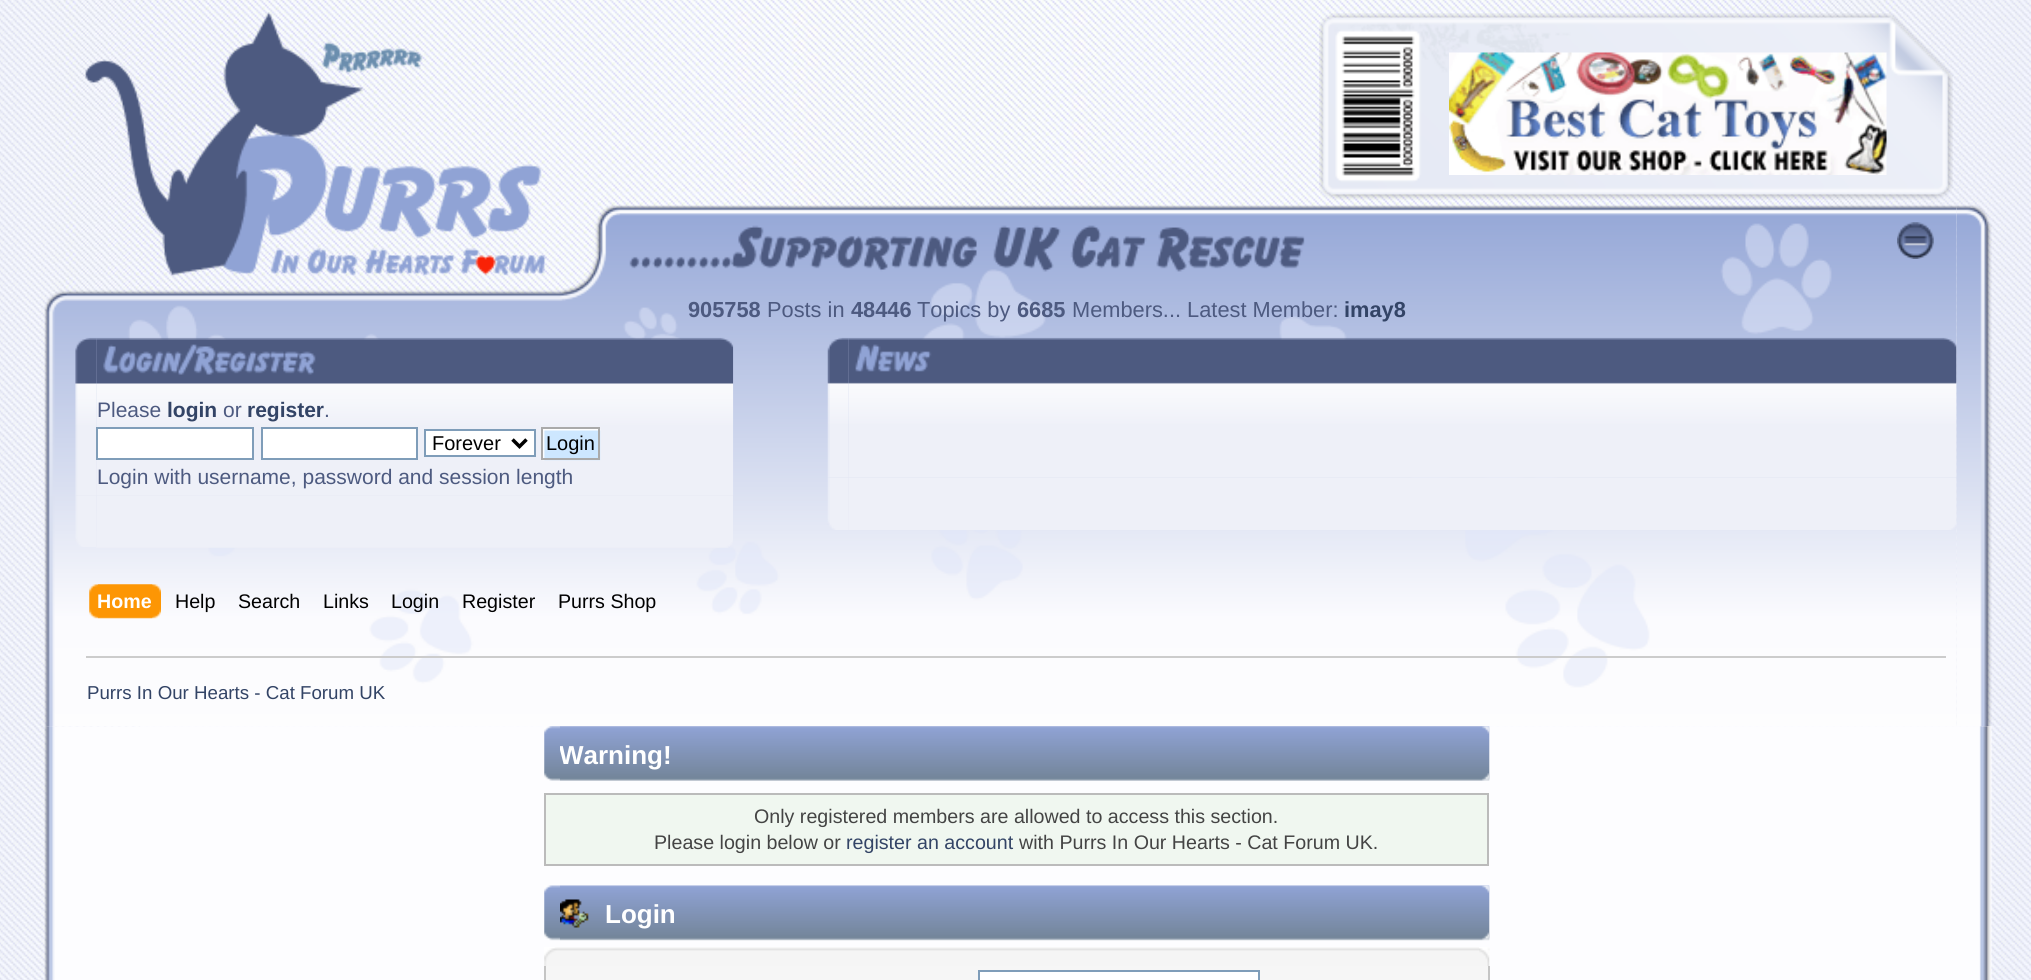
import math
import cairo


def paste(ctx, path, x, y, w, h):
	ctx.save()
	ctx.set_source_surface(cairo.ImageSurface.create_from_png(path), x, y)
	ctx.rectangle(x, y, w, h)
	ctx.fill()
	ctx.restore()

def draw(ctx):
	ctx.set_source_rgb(1, 1, 1)
	ctx.paint()
	paste(ctx, 'media/1.png', 0, 0, 2031, 980)
	paste(ctx, 'media/2.png', 1956, 205, 36, 522)
	paste(ctx, 'media/3.png', 44, 205, 1913, 522)
	paste(ctx, 'media/4.png', 85, 12, 462, 264)
	paste(ctx, 'media/5.png', 1319, 13, 634, 187)
	paste(ctx, 'media/6.png', 1449, 52, 438, 123)
	paste(ctx, 'media/7.png', 629, 225, 676, 47)
	paste(ctx, 'media/8.png', 1897, 222, 37, 37)
	ctx.select_font_face('Liberation Sans', cairo.FONT_SLANT_NORMAL, cairo.FONT_WEIGHT_BOLD)
	ctx.set_font_size(21.8)
	ctx.set_source_rgb(0.302, 0.353, 0.502)
	ctx.move_to(688, 317)
	ctx.show_text('905758')
	ctx.select_font_face('Liberation Sans')
	ctx.move_to(767, 317)
	ctx.show_text('Posts in')
	ctx.select_font_face('Liberation Sans', cairo.FONT_SLANT_NORMAL, cairo.FONT_WEIGHT_BOLD)
	ctx.move_to(851, 317)
	ctx.show_text('48446')
	ctx.select_font_face('Liberation Sans')
	ctx.move_to(917, 317)
	ctx.show_text('Topics by')
	ctx.select_font_face('Liberation Sans', cairo.FONT_SLANT_NORMAL, cairo.FONT_WEIGHT_BOLD)
	ctx.move_to(1017, 317)
	ctx.show_text('6685')
	ctx.select_font_face('Liberation Sans')
	ctx.move_to(1072, 317)
	ctx.show_text('Members... Latest Member:')
	ctx.select_font_face('Liberation Sans', cairo.FONT_SLANT_NORMAL, cairo.FONT_WEIGHT_BOLD)
	ctx.set_source_rgb(0.2, 0.267, 0.4)
	ctx.move_to(1344, 317)
	ctx.show_text('imay8')
	paste(ctx, 'media/9.png', 96, 337, 638, 159)
	paste(ctx, 'media/10.png', 75, 337, 22, 159)
	paste(ctx, 'media/11.png', 103, 344, 213, 31)
	ctx.select_font_face('Liberation Sans')
	ctx.set_font_size(21)
	ctx.set_source_rgb(0.302, 0.353, 0.502)
	ctx.move_to(97, 417)
	ctx.show_text('Please')
	ctx.select_font_face('Liberation Sans', cairo.FONT_SLANT_NORMAL, cairo.FONT_WEIGHT_BOLD)
	ctx.set_source_rgb(0.2, 0.267, 0.4)
	ctx.move_to(167, 417)
	ctx.show_text('login')
	ctx.select_font_face('Liberation Sans')
	ctx.set_source_rgb(0.302, 0.353, 0.502)
	ctx.move_to(223, 417)
	ctx.show_text('or')
	ctx.select_font_face('Liberation Sans', cairo.FONT_SLANT_NORMAL, cairo.FONT_WEIGHT_BOLD)
	ctx.set_source_rgb(0.2, 0.267, 0.4)
	ctx.move_to(247, 417)
	ctx.show_text('register')
	ctx.select_font_face('Liberation Sans')
	ctx.set_source_rgb(0.302, 0.353, 0.502)
	ctx.move_to(324, 417)
	ctx.show_text('.')
	ctx.set_source_rgb(1, 1, 1)
	ctx.rectangle(97, 428, 156, 31)
	ctx.fill_preserve()
	ctx.set_source_rgb(0.498, 0.616, 0.725)
	ctx.stroke()
	ctx.set_source_rgb(1, 1, 1)
	ctx.rectangle(262, 428, 155, 31)
	ctx.fill_preserve()
	ctx.set_source_rgb(0.498, 0.616, 0.725)
	ctx.stroke()
	ctx.set_source_rgb(1, 1, 1)
	ctx.rectangle(425, 430, 110, 26)
	ctx.fill_preserve()
	ctx.set_source_rgb(0.498, 0.616, 0.725)
	ctx.stroke()
	ctx.new_path()
	ctx.move_to(512.5, 439.5)
	ctx.line_to(519.5, 446.5)
	ctx.line_to(526.5, 439.5)
	ctx.set_source_rgb(0, 0, 0)
	ctx.set_line_width(3.5)
	ctx.stroke()
	ctx.set_font_size(20)
	ctx.move_to(432, 450)
	ctx.show_text('Forever')
	paste(ctx, 'media/12.png', 542, 428, 59, 33)
	ctx.rectangle(542, 428, 57, 31)
	ctx.set_source_rgb(0.667, 0.667, 0.667)
	ctx.set_line_width(2)
	ctx.stroke()
	ctx.set_source_rgb(0, 0, 0)
	ctx.move_to(546, 450)
	ctx.show_text('Login')
	ctx.set_font_size(21)
	ctx.set_source_rgb(0.302, 0.353, 0.502)
	ctx.move_to(97, 484)
	ctx.show_text('Login with username, password and session length')
	paste(ctx, 'media/13.png', 96, 495, 637, 53)
	paste(ctx, 'media/14.png', 75, 495, 21, 52)
	paste(ctx, 'media/15.png', 848, 337, 1109, 141)
	paste(ctx, 'media/16.png', 827, 337, 22, 141)
	paste(ctx, 'media/17.png', 855, 344, 77, 28)
	paste(ctx, 'media/18.png', 848, 478, 1109, 52)
	paste(ctx, 'media/19.png', 827, 478, 22, 52)
	paste(ctx, 'media/20.png', 98, 584, 63, 35)
	paste(ctx, 'media/21.png', 89, 584, 64, 35)
	ctx.select_font_face('Liberation Sans', cairo.FONT_SLANT_NORMAL, cairo.FONT_WEIGHT_BOLD)
	ctx.set_font_size(19.65)
	ctx.set_source_rgb(1, 1, 1)
	ctx.move_to(97, 608)
	ctx.show_text('Home')
	ctx.select_font_face('Liberation Sans')
	ctx.set_source_rgb(0, 0, 0)
	for x, y, s in [
		(175, 608, 'Help'),
		(238, 608, 'Search'),
		(323, 608, 'Links'),
		(391, 608, 'Login'),
		(462, 608, 'Register'),
		(558, 608, 'Purrs Shop'),
	]:
		ctx.move_to(x, y)
		ctx.show_text(s)
	ctx.set_source_rgb(0.8, 0.8, 0.8)
	ctx.rectangle(86, 656, 1860, 2)
	ctx.fill()
	ctx.set_font_size(18.7)
	ctx.set_source_rgb(0.2, 0.267, 0.4)
	ctx.move_to(87, 699)
	ctx.show_text('Purrs In Our Hearts - Cat Forum UK')
	paste(ctx, 'media/22.png', 44, 726, 1948, 254)
	paste(ctx, 'media/23.png', 140, 726, 1851, 254)
	paste(ctx, 'media/24.png', 544, 726, 946, 55)
	paste(ctx, 'media/25.png', 560, 726, 930, 55)
	ctx.save()
	ctx.rectangle(560, 726, 929, 60)
	ctx.clip()
	ctx.select_font_face('Liberation Sans', cairo.FONT_SLANT_NORMAL, cairo.FONT_WEIGHT_BOLD)
	ctx.set_font_size(26)
	ctx.set_source_rgb(1, 1, 1)
	ctx.move_to(559, 764)
	ctx.show_text('Warning!')
	ctx.restore()
	ctx.set_source_rgb(0.941, 0.965, 0.941)
	ctx.rectangle(545, 794, 943, 71)
	ctx.fill_preserve()
	ctx.set_source_rgb(0.733, 0.733, 0.733)
	ctx.stroke()
	ctx.set_font_size(19.65)
	ctx.set_source_rgb(0.267, 0.267, 0.267)
	ctx.move_to(754, 823)
	ctx.show_text('Only registered members are allowed to access this section.')
	ctx.move_to(654, 849)
	ctx.show_text('Please login below or')
	ctx.set_source_rgb(0.2, 0.267, 0.4)
	ctx.move_to(846, 849)
	ctx.show_text('register an account')
	ctx.set_source_rgb(0.267, 0.267, 0.267)
	ctx.move_to(1019, 849)
	ctx.show_text('with Purrs In Our Hearts - Cat Forum UK.')
	paste(ctx, 'media/26.png', 544, 885, 946, 56)
	paste(ctx, 'media/27.png', 560, 885, 930, 56)
	paste(ctx, 'media/28.png', 560, 899, 29, 29)
	ctx.select_font_face('Liberation Sans', cairo.FONT_SLANT_NORMAL, cairo.FONT_WEIGHT_BOLD)
	ctx.set_font_size(26)
	ctx.set_source_rgb(1, 1, 1)
	ctx.move_to(605, 923)
	ctx.show_text('Login')
	paste(ctx, 'media/29.png', 544, 947, 946, 19)
	paste(ctx, 'media/30.png', 1479, 947, 11, 19)
	ctx.set_source_rgb(0.961, 0.961, 0.961)
	ctx.rectangle(546, 966, 942, 14)
	ctx.fill()
	ctx.set_source_rgb(0.773, 0.773, 0.773)
	ctx.rectangle(1488, 966, 2, 14)
	ctx.rectangle(544, 966, 2, 14)
	ctx.fill()
	ctx.set_source_rgb(1, 1, 1)
	ctx.rectangle(979, 971, 280, 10)
	ctx.fill_preserve()
	ctx.set_source_rgb(0.498, 0.616, 0.725)
	ctx.stroke()


surface = cairo.ImageSurface(cairo.FORMAT_RGB24, 2031, 980)
ctx = cairo.Context(surface)
options = cairo.FontOptions()
options.set_hint_metrics(cairo.HINT_METRICS_OFF)
options.set_hint_style(cairo.HINT_STYLE_NONE)
ctx.set_font_options(options)
ctx.set_miter_limit(4)
draw(ctx)
surface.write_to_png('image.png')
